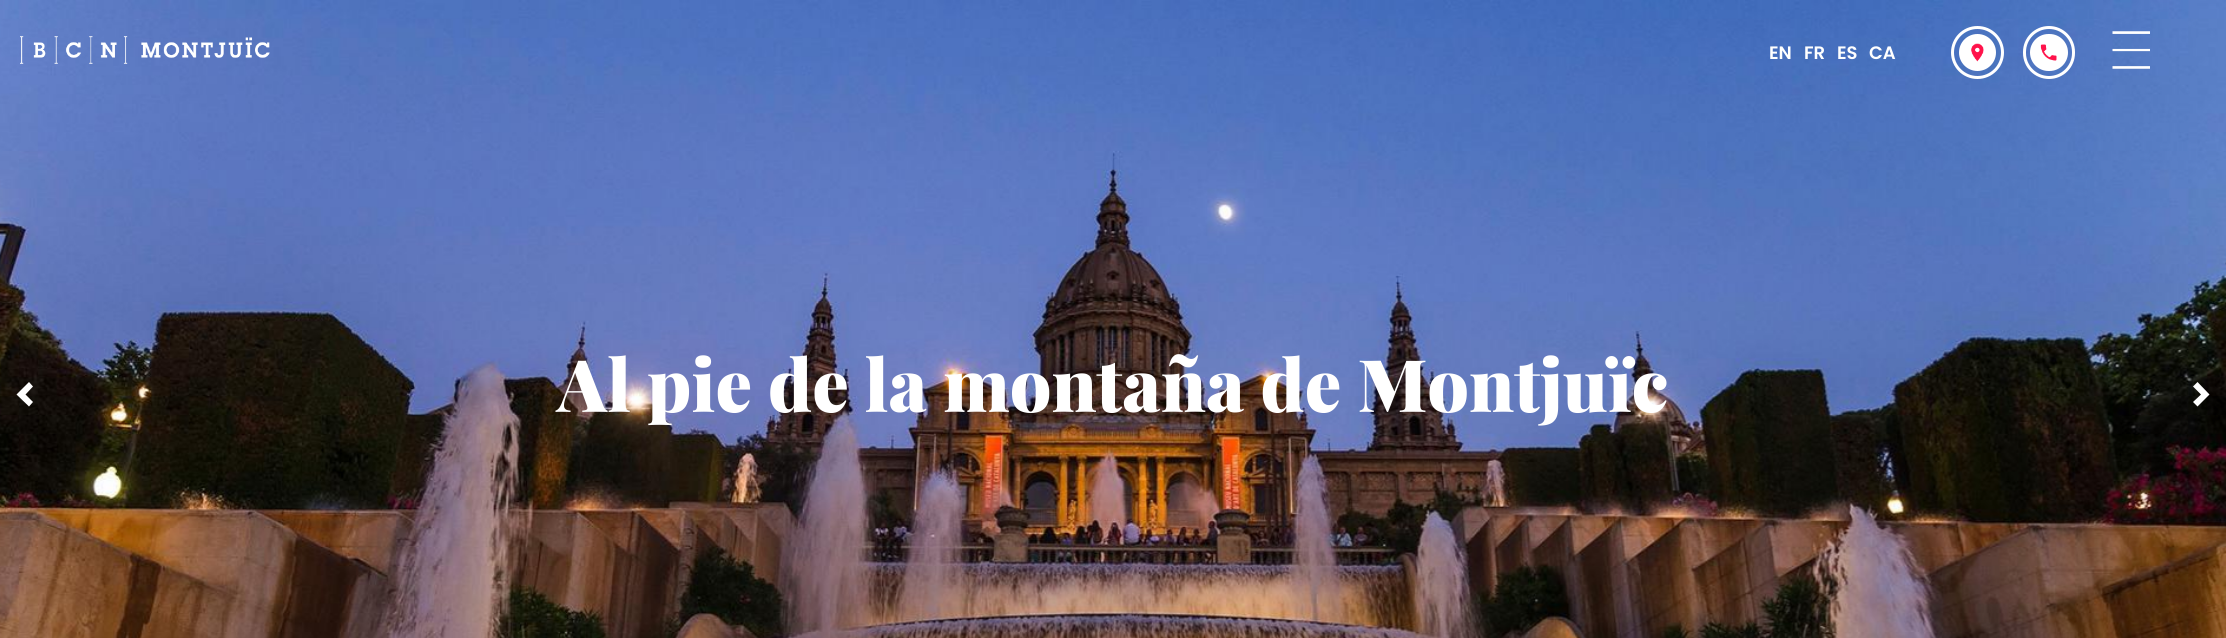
import math
import cairo


def round_path(ctx, x, y, w, h, r):
	ctx.new_sub_path()
	for i, (u, v) in enumerate([(x + w - r, y + h - r), (x + r, y + h - r), (x + r, y + r), (x + w - r, y + r)]):
		ctx.arc(u, v, r, i * math.pi / 2, (i + 1) * math.pi / 2)
	ctx.close_path()

def paste(ctx, path, x, y, w, h):
	ctx.save()
	ctx.set_source_surface(cairo.ImageSurface.create_from_png(path), x, y)
	ctx.rectangle(x, y, w, h)
	ctx.fill()
	ctx.restore()

def draw(ctx):
	ctx.set_source_rgb(1, 1, 1)
	ctx.paint()
	paste(ctx, 'media/5.png', 0, 0, 2226, 638)
	paste(ctx, 'media/1.png', 20, 36, 250, 28)
	ctx.select_font_face('Poppins SemiBold')
	ctx.set_font_size(18)
	ctx.set_source_rgb(1, 1, 1)
	for x, y, s in [
		(1769, 59, 'EN'),
		(1804, 59, 'FR'),
		(1837, 59, 'ES'),
		(1869, 59, 'CA'),
	]:
		ctx.move_to(x, y)
		ctx.show_text(s)
	ctx.new_path()
	ctx.arc(1977.5, 52.5, 25, 0, 2 * math.pi)
	ctx.set_line_width(3)
	ctx.stroke()
	ctx.arc(1977.5, 52.5, 18.5, 0, 2 * math.pi)
	ctx.fill()
	paste(ctx, 'media/2.png', 1971, 43, 13, 19)
	round_path(ctx, 2024.5, 27.5, 49, 50, 24.5)
	ctx.stroke()
	round_path(ctx, 2030, 34, 38, 37, 18.5)
	ctx.fill()
	paste(ctx, 'media/3.png', 2040, 44, 17, 17)
	paste(ctx, 'media/4.png', 2112, 31, 38, 38)
	ctx.new_path()
	ctx.move_to(33, 386.5)
	ctx.line_to(25.5, 394.5)
	ctx.line_to(33, 402)
	ctx.line_to(29, 406.5)
	ctx.line_to(16.5, 394.5)
	ctx.line_to(29, 382)
	ctx.close_path()
	ctx.fill()
	ctx.select_font_face('Playfair Display Black')
	ctx.set_font_size(72.5)
	ctx.move_to(557, 412)
	ctx.show_text('Al pie de la montaña de Montjuïc')
	ctx.new_path()
	ctx.move_to(2209.5, 394.5)
	ctx.line_to(2197.5, 406.5)
	ctx.line_to(2193, 402)
	ctx.line_to(2201, 394.5)
	ctx.line_to(2193, 386.5)
	ctx.line_to(2197.5, 382)
	ctx.close_path()
	ctx.fill()


surface = cairo.ImageSurface(cairo.FORMAT_RGB24, 2226, 638)
ctx = cairo.Context(surface)
options = cairo.FontOptions()
options.set_hint_metrics(cairo.HINT_METRICS_OFF)
options.set_hint_style(cairo.HINT_STYLE_NONE)
ctx.set_font_options(options)
ctx.set_miter_limit(4)
draw(ctx)
surface.write_to_png('image.png')
